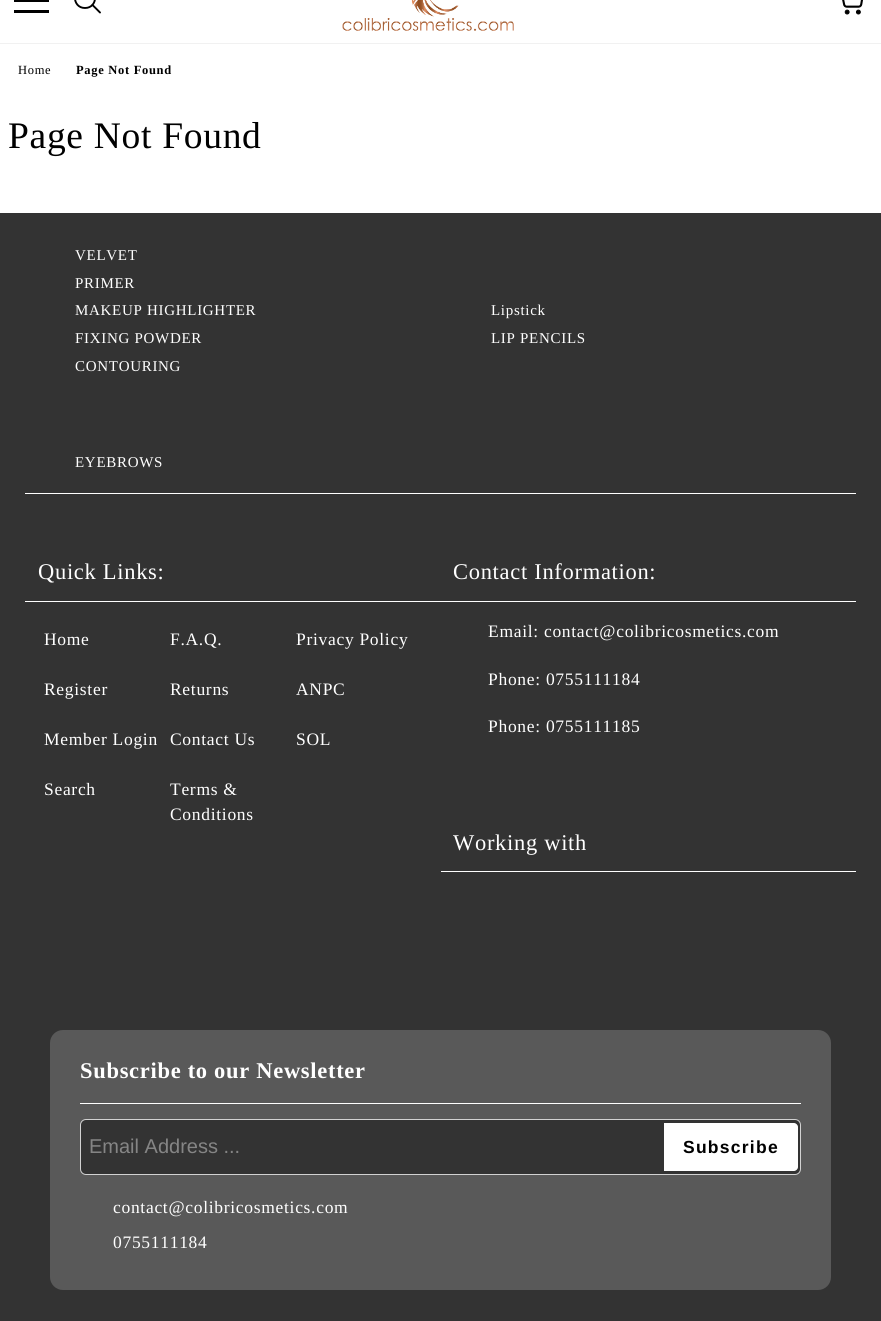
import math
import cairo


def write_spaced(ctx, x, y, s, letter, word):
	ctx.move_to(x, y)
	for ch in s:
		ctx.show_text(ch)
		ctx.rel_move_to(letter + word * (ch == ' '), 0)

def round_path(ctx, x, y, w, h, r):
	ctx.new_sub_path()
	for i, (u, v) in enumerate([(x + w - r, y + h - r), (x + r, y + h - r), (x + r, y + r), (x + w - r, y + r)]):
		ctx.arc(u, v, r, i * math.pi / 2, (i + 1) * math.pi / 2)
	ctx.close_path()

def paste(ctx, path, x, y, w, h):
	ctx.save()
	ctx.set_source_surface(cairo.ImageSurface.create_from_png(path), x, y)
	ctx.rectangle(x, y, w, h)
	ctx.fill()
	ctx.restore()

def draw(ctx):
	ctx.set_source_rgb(1, 1, 1)
	ctx.paint()
	ctx.set_source_rgb(0.945, 0.945, 0.945)
	ctx.rectangle(0, 43, 881, 1)
	ctx.fill()
	ctx.set_source_rgb(0, 0, 0)
	ctx.rectangle(14, 0, 35, 2)
	ctx.rectangle(14, 10, 35, 3)
	ctx.fill()
	ctx.new_path()
	ctx.move_to(85, -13)
	ctx.curve_to(71.5, -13, 71.5, 8, 85, 8)
	ctx.curve_to(98.5, 8, 98.5, -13, 85, -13)
	ctx.close_path()
	ctx.set_line_width(1.9)
	ctx.stroke()
	ctx.new_path()
	ctx.move_to(92.5, 5)
	ctx.line_to(100, 12.5)
	ctx.set_line_cap(cairo.LINE_CAP_ROUND)
	ctx.stroke()
	paste(ctx, 'media/1.png', 342, 0, 172, 31)
	paste(ctx, 'media/2.png', 842, 0, 21, 15)
	ctx.select_font_face('Liberation Serif')
	ctx.set_font_size(12.5)
	write_spaced(ctx, 18, 74, 'Home', 0.7, 0)
	ctx.select_font_face('Liberation Serif', cairo.FONT_SLANT_NORMAL, cairo.FONT_WEIGHT_BOLD)
	write_spaced(ctx, 76, 74, 'Page Not Found', 0.7, 0)
	ctx.select_font_face('Liberation Serif')
	ctx.set_font_size(37.5)
	write_spaced(ctx, 8, 148, 'Page Not Found', 0.7, 0)
	ctx.set_source_rgb(0.2, 0.2, 0.2)
	ctx.rectangle(0, 213, 881, 1108)
	ctx.fill()
	ctx.set_source_rgb(1, 1, 1)
	ctx.rectangle(25, 493, 831, 1)
	ctx.fill()
	ctx.set_font_size(15)
	for x, y, s in [
		(75, 260, 'VELVET'),
		(75, 288, 'PRIMER'),
		(75, 315, 'MAKEUP HIGHLIGHTER'),
		(75, 343, 'FIXING POWDER'),
		(75, 371, 'CONTOURING'),
		(75, 467, 'EYEBROWS'),
		(491, 315, 'Lipstick'),
		(491, 343, 'LIP PENCILS'),
	]:
		write_spaced(ctx, x, y, s, 0.7, 0)
	ctx.rectangle(25, 601, 831, 1)
	ctx.fill()
	ctx.set_font_size(22.5)
	write_spaced(ctx, 38, 579, 'Quick Links:', 0.7, 0)
	ctx.set_font_size(17.5)
	for x, y, s in [
		(44, 645, 'Home'),
		(44, 695, 'Register'),
		(44, 745, 'Member Login'),
		(44, 795, 'Search'),
		(170, 645, 'F.A.Q.'),
		(170, 695, 'Returns'),
		(170, 745, 'Contact Us'),
		(170, 795, 'Terms &'),
		(170, 820, 'Conditions'),
		(296, 645, 'Privacy Policy'),
		(296, 695, 'ANPC'),
		(296, 745, 'SOL'),
	]:
		write_spaced(ctx, x, y, s, 0.7, 0)
	ctx.set_font_size(22.5)
	write_spaced(ctx, 453, 579, 'Contact Information:', 0.7, 0)
	ctx.set_font_size(17.5)
	for x, y, s in [
		(488, 637, 'Email: contact@colibricosmetics.com'),
		(488, 685, 'Phone: 0755111184'),
		(488, 732, 'Phone: 0755111185'),
	]:
		write_spaced(ctx, x, y, s, 0.7, 0)
	ctx.rectangle(441, 871, 415, 1)
	ctx.fill()
	ctx.set_font_size(22.5)
	write_spaced(ctx, 453, 850, 'Working with', 0.7, 0)
	ctx.set_source_rgb(0.349, 0.349, 0.349)
	round_path(ctx, 50, 1030, 781, 260, 13)
	ctx.fill()
	ctx.set_source_rgb(1, 1, 1)
	ctx.rectangle(80, 1103, 721, 1)
	ctx.fill()
	ctx.select_font_face('Liberation Serif', cairo.FONT_SLANT_NORMAL, cairo.FONT_WEIGHT_BOLD)
	write_spaced(ctx, 80, 1078, 'Subscribe to our Newsletter', 0.7, 0)
	ctx.set_source_rgb(0.2, 0.2, 0.2)
	round_path(ctx, 80.5, 1119.5, 720, 55, 5.5)
	ctx.fill_preserve()
	ctx.set_source_rgb(0.824, 0.824, 0.824)
	ctx.set_line_width(1)
	ctx.set_line_cap(cairo.LINE_CAP_BUTT)
	ctx.stroke()
	ctx.select_font_face('Liberation Sans')
	ctx.set_font_size(20)
	ctx.set_source_rgb(0.522, 0.522, 0.522)
	ctx.move_to(89, 1153)
	ctx.show_text('Email Address ...')
	ctx.set_source_rgb(1, 1, 1)
	ctx.new_path()
	ctx.move_to(664, 1123)
	ctx.line_to(794, 1123)
	ctx.curve_to(796, 1123, 798, 1125, 798, 1127)
	ctx.line_to(798, 1167)
	ctx.curve_to(798, 1169, 796, 1171, 794, 1171)
	ctx.line_to(664, 1171)
	ctx.close_path()
	ctx.fill()
	ctx.select_font_face('Liberation Sans', cairo.FONT_SLANT_NORMAL, cairo.FONT_WEIGHT_BOLD)
	ctx.set_font_size(17.5)
	ctx.set_source_rgb(0, 0, 0)
	write_spaced(ctx, 683, 1153, 'Subscribe', 1.25, 0)
	ctx.select_font_face('Liberation Serif')
	ctx.set_source_rgb(1, 1, 1)
	write_spaced(ctx, 113, 1213, 'contact@colibricosmetics.com', 0.7, 0)
	write_spaced(ctx, 113, 1248, '0755111184', 0.7, 0)


surface = cairo.ImageSurface(cairo.FORMAT_RGB24, 881, 1321)
ctx = cairo.Context(surface)
options = cairo.FontOptions()
options.set_hint_metrics(cairo.HINT_METRICS_OFF)
options.set_hint_style(cairo.HINT_STYLE_NONE)
ctx.set_font_options(options)
ctx.set_miter_limit(4)
draw(ctx)
surface.write_to_png('image.png')
